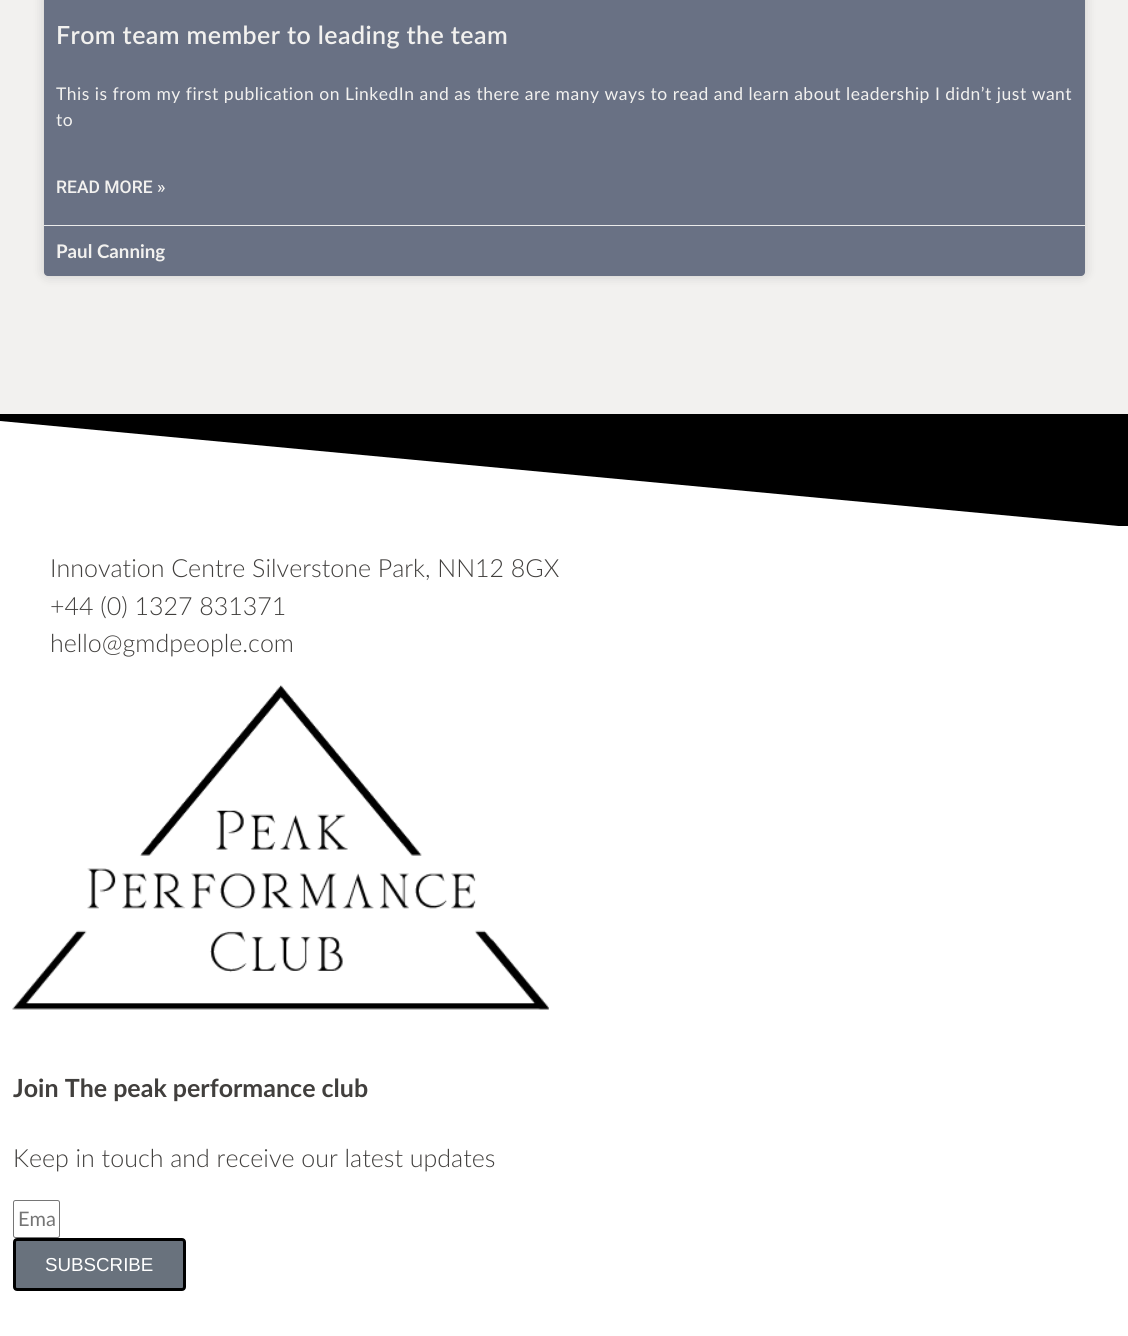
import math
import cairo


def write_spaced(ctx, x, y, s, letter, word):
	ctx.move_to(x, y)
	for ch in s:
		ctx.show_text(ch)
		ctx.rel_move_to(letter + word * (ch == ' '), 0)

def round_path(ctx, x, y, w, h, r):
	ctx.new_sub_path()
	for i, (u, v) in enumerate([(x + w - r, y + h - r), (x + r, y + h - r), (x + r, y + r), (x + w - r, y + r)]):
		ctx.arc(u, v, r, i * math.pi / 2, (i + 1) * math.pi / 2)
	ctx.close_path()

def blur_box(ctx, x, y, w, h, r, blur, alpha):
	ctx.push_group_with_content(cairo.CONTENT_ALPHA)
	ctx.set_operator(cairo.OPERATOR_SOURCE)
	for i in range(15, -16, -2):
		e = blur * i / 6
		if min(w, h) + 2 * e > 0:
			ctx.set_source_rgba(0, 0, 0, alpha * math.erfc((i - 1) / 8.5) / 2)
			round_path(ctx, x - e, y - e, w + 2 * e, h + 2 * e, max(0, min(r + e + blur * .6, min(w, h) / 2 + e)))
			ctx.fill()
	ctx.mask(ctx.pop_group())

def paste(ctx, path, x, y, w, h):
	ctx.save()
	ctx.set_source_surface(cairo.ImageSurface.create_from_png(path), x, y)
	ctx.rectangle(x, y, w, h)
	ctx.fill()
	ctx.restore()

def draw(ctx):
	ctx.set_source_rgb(1, 1, 1)
	ctx.paint()
	ctx.set_source_rgb(0.949, 0.945, 0.937)
	ctx.rectangle(0, 0, 1128, 414)
	ctx.fill()
	ctx.set_source_rgb(0, 0, 0)
	blur_box(ctx, 44, -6, 1041, 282, 4, 6, 0.15)
	ctx.set_source_rgb(0.412, 0.443, 0.518)
	round_path(ctx, 44, -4, 1041, 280, 4)
	ctx.fill()
	ctx.select_font_face('Lato SemiBold')
	ctx.set_font_size(25)
	ctx.set_source_rgb(0.949, 0.945, 0.937)
	write_spaced(ctx, 56, 44, 'From team member to leading the team', 0.4, 0)
	ctx.select_font_face('Lato')
	ctx.set_font_size(17.5)
	write_spaced(ctx, 56, 100, 'This is from my first publication on LinkedIn and as there are many ways to read and learn about leadership I didn’t just want', 0.5, 0)
	write_spaced(ctx, 56, 126, 'to', 0.5, 0)
	ctx.select_font_face('Roboto Medium')
	ctx.move_to(56, 193)
	ctx.show_text('READ MORE »')
	ctx.set_source_rgb(0.918, 0.918, 0.918)
	ctx.rectangle(44, 225, 1041, 1)
	ctx.fill()
	ctx.select_font_face('Lato', cairo.FONT_SLANT_NORMAL, cairo.FONT_WEIGHT_BOLD)
	ctx.set_font_size(18.75)
	ctx.set_source_rgb(0.949, 0.945, 0.937)
	ctx.move_to(56, 258)
	ctx.show_text('Paul Canning')
	ctx.save()
	ctx.rectangle(0, 414, 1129, 112)
	ctx.clip()
	ctx.set_source_rgb(0, 0, 0)
	ctx.new_path()
	ctx.move_to(0, 421)
	ctx.line_to(0, 414)
	ctx.line_to(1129, 414)
	ctx.line_to(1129, 527)
	ctx.close_path()
	ctx.fill()
	ctx.restore()
	ctx.select_font_face('Lato Light')
	ctx.set_font_size(25)
	ctx.set_source_rgb(0.255, 0.247, 0.239)
	for x, y, s in [
		(50, 577, 'Innovation Centre Silverstone Park, NN12 8GX'),
		(50, 615, '+44 (0) 1327 831371'),
		(50, 652, 'hello@gmdpeople.com'),
	]:
		ctx.move_to(x, y)
		ctx.show_text(s)
	paste(ctx, 'media/1.png', 12, 685, 537, 325)
	ctx.select_font_face('Lato', cairo.FONT_SLANT_NORMAL, cairo.FONT_WEIGHT_BOLD)
	ctx.move_to(13, 1097)
	ctx.show_text('Join The peak performance club')
	ctx.select_font_face('Lato Light')
	ctx.move_to(13, 1167)
	ctx.show_text('Keep in touch and receive our latest updates')
	round_path(ctx, 13.5, 1200.5, 46, 37, 2)
	ctx.set_source_rgb(0.463, 0.463, 0.463)
	ctx.set_line_width(1)
	ctx.stroke()
	ctx.select_font_face('Lato')
	ctx.set_font_size(20)
	ctx.set_source_rgb(0.459, 0.459, 0.459)
	ctx.move_to(18, 1226)
	ctx.show_text('Ema')
	ctx.set_source_rgb(0.412, 0.447, 0.49)
	round_path(ctx, 14.5, 1239.5, 170, 50, 2.5)
	ctx.fill_preserve()
	ctx.set_source_rgb(0, 0, 0)
	ctx.set_line_width(3)
	ctx.stroke()
	ctx.select_font_face('Liberation Sans')
	ctx.set_font_size(18.75)
	ctx.set_source_rgb(1, 1, 1)
	ctx.move_to(45, 1271)
	ctx.show_text('SUBSCRIBE')


surface = cairo.ImageSurface(cairo.FORMAT_RGB24, 1128, 1336)
ctx = cairo.Context(surface)
options = cairo.FontOptions()
options.set_hint_metrics(cairo.HINT_METRICS_OFF)
options.set_hint_style(cairo.HINT_STYLE_NONE)
ctx.set_font_options(options)
ctx.set_miter_limit(4)
draw(ctx)
surface.write_to_png('image.png')
